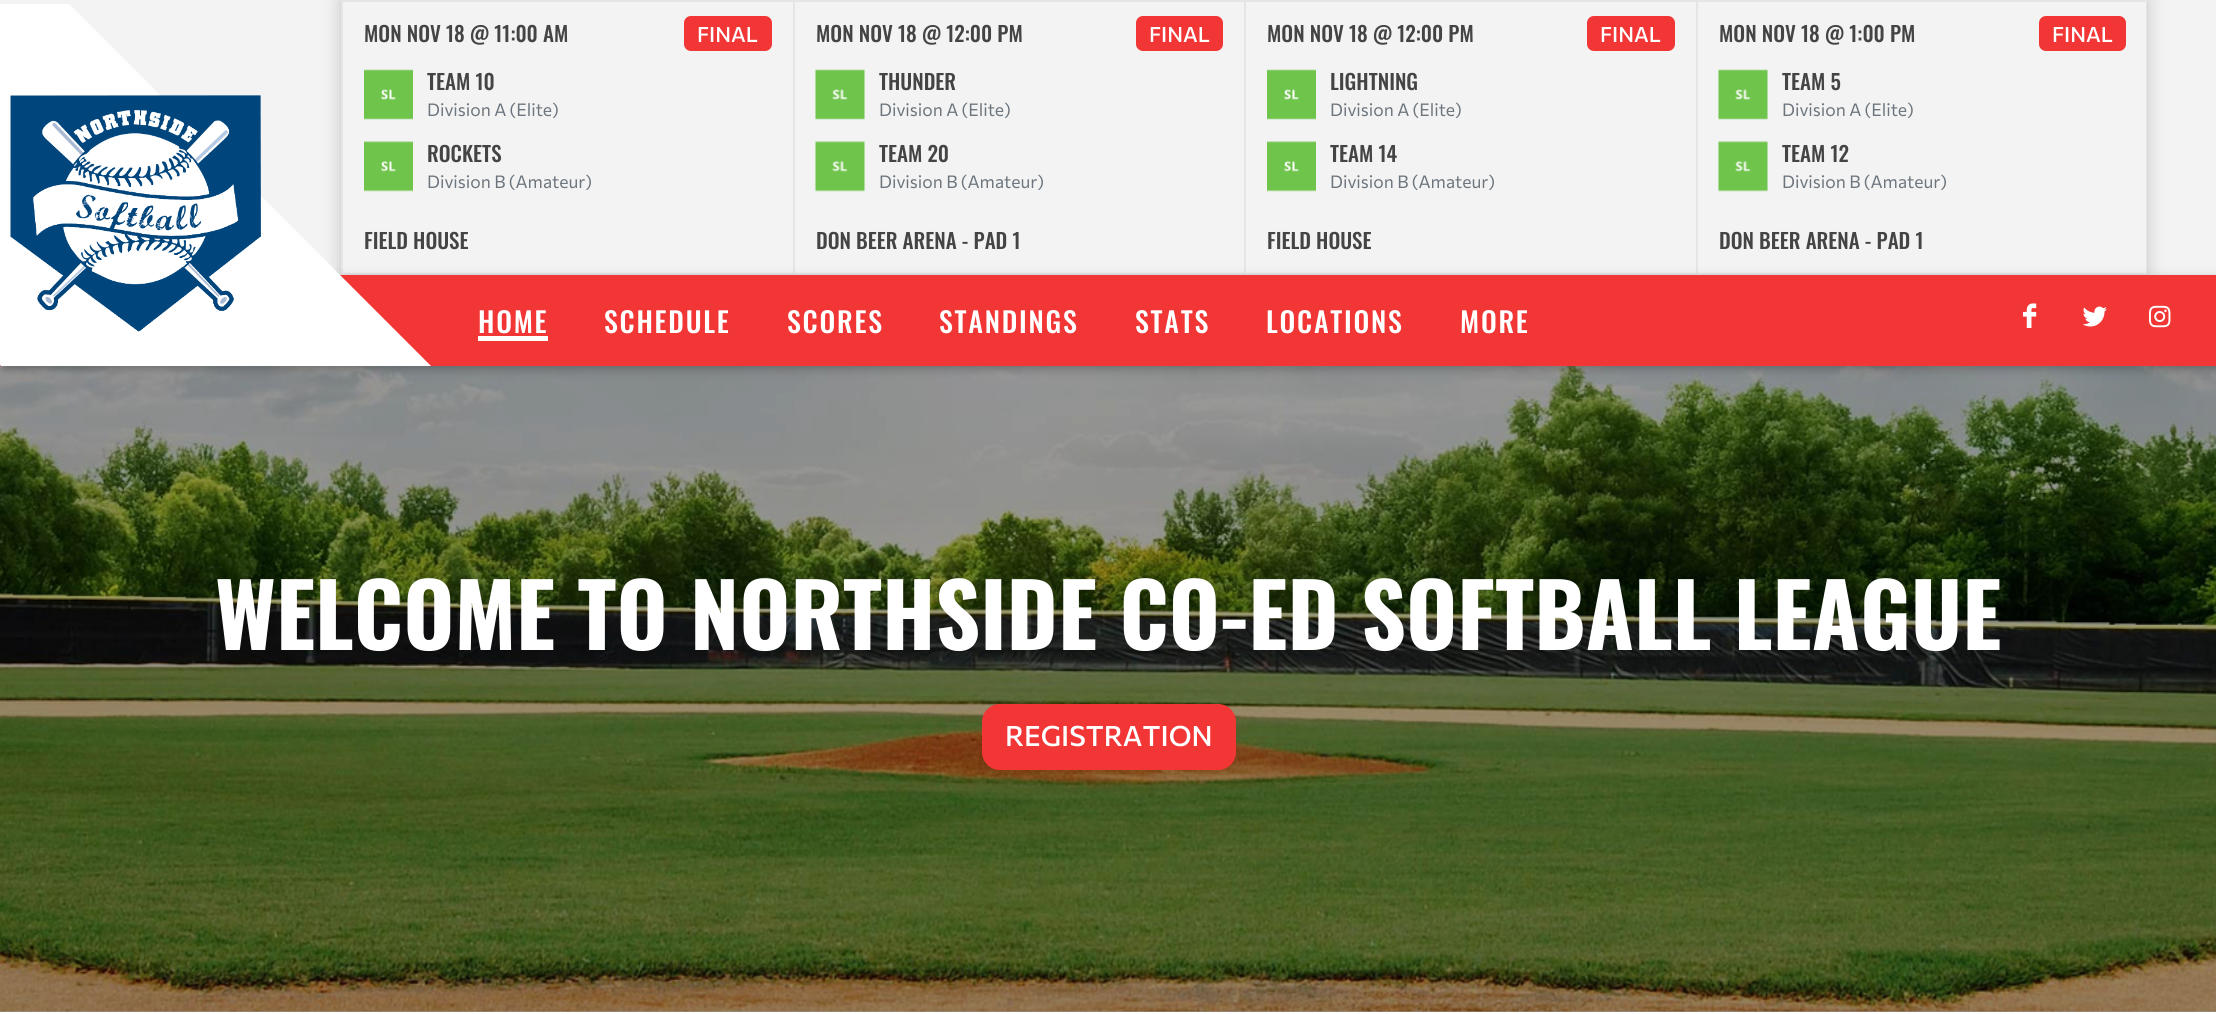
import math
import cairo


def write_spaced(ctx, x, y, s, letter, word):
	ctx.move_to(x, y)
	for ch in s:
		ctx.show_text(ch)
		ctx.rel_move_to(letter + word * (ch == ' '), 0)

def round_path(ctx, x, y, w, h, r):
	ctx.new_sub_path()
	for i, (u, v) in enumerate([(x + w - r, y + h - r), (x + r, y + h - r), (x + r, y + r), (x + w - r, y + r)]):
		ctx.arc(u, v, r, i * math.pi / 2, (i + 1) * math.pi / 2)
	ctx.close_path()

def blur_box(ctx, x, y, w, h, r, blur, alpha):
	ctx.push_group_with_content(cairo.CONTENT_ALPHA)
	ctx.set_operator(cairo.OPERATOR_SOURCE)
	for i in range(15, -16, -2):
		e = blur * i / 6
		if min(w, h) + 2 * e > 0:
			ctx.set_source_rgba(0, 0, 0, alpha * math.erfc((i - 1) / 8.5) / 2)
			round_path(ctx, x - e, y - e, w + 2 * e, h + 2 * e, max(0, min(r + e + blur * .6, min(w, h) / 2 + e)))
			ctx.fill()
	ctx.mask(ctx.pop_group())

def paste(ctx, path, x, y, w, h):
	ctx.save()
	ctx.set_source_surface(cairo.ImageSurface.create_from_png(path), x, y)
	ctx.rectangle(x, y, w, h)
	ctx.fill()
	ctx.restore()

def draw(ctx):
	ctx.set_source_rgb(1, 1, 1)
	ctx.paint()
	ctx.set_source_rgb(0.6, 0.6, 0.6)
	ctx.rectangle(0, 1011, 2216, 1)
	ctx.fill()
	ctx.set_source_rgb(0.953, 0.953, 0.953)
	ctx.rectangle(0, 0, 2216, 275)
	ctx.fill()
	ctx.save()
	ctx.set_fill_rule(cairo.FILL_RULE_EVEN_ODD)
	ctx.new_path()
	ctx.move_to(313, 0)
	ctx.line_to(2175, 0)
	ctx.line_to(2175, 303)
	ctx.line_to(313, 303)
	ctx.close_path()
	ctx.move_to(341, 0)
	ctx.line_to(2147, 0)
	ctx.line_to(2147, 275)
	ctx.line_to(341, 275)
	ctx.close_path()
	ctx.clip()
	ctx.set_source_rgb(0, 0, 0)
	blur_box(ctx, 341, 0, 1806, 275, 0, 9, 0.2)
	ctx.restore()
	ctx.rectangle(342, 1, 1804, 273)
	ctx.set_source_rgb(0.898, 0.898, 0.898)
	ctx.stroke()
	ctx.rectangle(793, 2, 2, 271)
	ctx.fill()
	ctx.select_font_face('Oswald Medium')
	ctx.set_font_size(21)
	ctx.set_source_rgb(0.267, 0.267, 0.267)
	ctx.move_to(364, 42)
	ctx.show_text('MON NOV 18 @ 11:00 AM')
	ctx.set_source_rgb(0.949, 0.208, 0.208)
	round_path(ctx, 684, 16, 88, 35, 7)
	ctx.fill()
	ctx.select_font_face('Commissioner Medium')
	ctx.set_source_rgb(1, 1, 1)
	ctx.move_to(697, 42)
	ctx.show_text('FINAL')
	paste(ctx, 'media/1.png', 364, 69, 49, 51)
	ctx.select_font_face('Oswald Medium')
	ctx.set_source_rgb(0.267, 0.267, 0.267)
	ctx.move_to(427, 90)
	ctx.show_text('TEAM 10')
	ctx.select_font_face('Commissioner')
	ctx.set_font_size(17.5)
	ctx.set_source_rgb(0.424, 0.459, 0.49)
	ctx.move_to(427, 116)
	ctx.show_text('Division A (Elite)')
	paste(ctx, 'media/2.png', 364, 141, 49, 51)
	ctx.select_font_face('Oswald Medium')
	ctx.set_font_size(21)
	ctx.set_source_rgb(0.267, 0.267, 0.267)
	ctx.move_to(427, 162)
	ctx.show_text('ROCKETS')
	ctx.select_font_face('Commissioner')
	ctx.set_font_size(17.5)
	ctx.set_source_rgb(0.424, 0.459, 0.49)
	ctx.move_to(427, 188)
	ctx.show_text('Division B (Amateur)')
	ctx.select_font_face('Oswald Medium')
	ctx.set_font_size(21)
	ctx.set_source_rgb(0.267, 0.267, 0.267)
	ctx.move_to(364, 249)
	ctx.show_text('FIELD HOUSE')
	ctx.set_source_rgb(0.898, 0.898, 0.898)
	ctx.rectangle(1244, 2, 2, 271)
	ctx.fill()
	ctx.set_source_rgb(0.267, 0.267, 0.267)
	ctx.move_to(816, 42)
	ctx.show_text('MON NOV 18 @ 12:00 PM')
	ctx.set_source_rgb(0.949, 0.208, 0.208)
	round_path(ctx, 1136, 16, 87, 35, 7)
	ctx.fill()
	ctx.select_font_face('Commissioner Medium')
	ctx.set_source_rgb(1, 1, 1)
	ctx.move_to(1149, 42)
	ctx.show_text('FINAL')
	paste(ctx, 'media/3.png', 815, 69, 50, 51)
	ctx.select_font_face('Oswald Medium')
	ctx.set_source_rgb(0.267, 0.267, 0.267)
	ctx.move_to(879, 90)
	ctx.show_text('THUNDER')
	ctx.select_font_face('Commissioner')
	ctx.set_font_size(17.5)
	ctx.set_source_rgb(0.424, 0.459, 0.49)
	ctx.move_to(879, 116)
	ctx.show_text('Division A (Elite)')
	paste(ctx, 'media/4.png', 815, 141, 50, 51)
	ctx.select_font_face('Oswald Medium')
	ctx.set_font_size(21)
	ctx.set_source_rgb(0.267, 0.267, 0.267)
	ctx.move_to(879, 162)
	ctx.show_text('TEAM 20')
	ctx.select_font_face('Commissioner')
	ctx.set_font_size(17.5)
	ctx.set_source_rgb(0.424, 0.459, 0.49)
	ctx.move_to(879, 188)
	ctx.show_text('Division B (Amateur)')
	ctx.select_font_face('Oswald Medium')
	ctx.set_font_size(21)
	ctx.set_source_rgb(0.267, 0.267, 0.267)
	ctx.move_to(816, 249)
	ctx.show_text('DON BEER ARENA - PAD 1')
	ctx.set_source_rgb(0.898, 0.898, 0.898)
	ctx.rectangle(1696, 2, 2, 271)
	ctx.fill()
	ctx.set_source_rgb(0.267, 0.267, 0.267)
	ctx.move_to(1267, 42)
	ctx.show_text('MON NOV 18 @ 12:00 PM')
	ctx.set_source_rgb(0.949, 0.208, 0.208)
	round_path(ctx, 1587, 16, 88, 35, 7)
	ctx.fill()
	ctx.select_font_face('Commissioner Medium')
	ctx.set_source_rgb(1, 1, 1)
	ctx.move_to(1600, 42)
	ctx.show_text('FINAL')
	paste(ctx, 'media/1.png', 1267, 69, 49, 51)
	ctx.select_font_face('Oswald Medium')
	ctx.set_source_rgb(0.267, 0.267, 0.267)
	ctx.move_to(1330, 90)
	ctx.show_text('LIGHTNING')
	ctx.select_font_face('Commissioner')
	ctx.set_font_size(17.5)
	ctx.set_source_rgb(0.424, 0.459, 0.49)
	ctx.move_to(1330, 116)
	ctx.show_text('Division A (Elite)')
	paste(ctx, 'media/2.png', 1267, 141, 49, 51)
	ctx.select_font_face('Oswald Medium')
	ctx.set_font_size(21)
	ctx.set_source_rgb(0.267, 0.267, 0.267)
	ctx.move_to(1330, 162)
	ctx.show_text('TEAM 14')
	ctx.select_font_face('Commissioner')
	ctx.set_font_size(17.5)
	ctx.set_source_rgb(0.424, 0.459, 0.49)
	ctx.move_to(1330, 188)
	ctx.show_text('Division B (Amateur)')
	ctx.select_font_face('Oswald Medium')
	ctx.set_font_size(21)
	ctx.set_source_rgb(0.267, 0.267, 0.267)
	ctx.move_to(1267, 249)
	ctx.show_text('FIELD HOUSE')
	ctx.set_source_rgb(0.953, 0.953, 0.953)
	ctx.rectangle(2145, 2, 1, 271)
	ctx.fill()
	ctx.set_source_rgb(0.267, 0.267, 0.267)
	ctx.move_to(1719, 42)
	ctx.show_text('MON NOV 18 @ 1:00 PM')
	ctx.set_source_rgb(0.949, 0.208, 0.208)
	round_path(ctx, 2039, 16, 87, 35, 7)
	ctx.fill()
	ctx.select_font_face('Commissioner Medium')
	ctx.set_source_rgb(1, 1, 1)
	ctx.move_to(2052, 42)
	ctx.show_text('FINAL')
	paste(ctx, 'media/3.png', 1718, 69, 50, 51)
	ctx.select_font_face('Oswald Medium')
	ctx.set_source_rgb(0.267, 0.267, 0.267)
	ctx.move_to(1782, 90)
	ctx.show_text('TEAM 5')
	ctx.select_font_face('Commissioner')
	ctx.set_font_size(17.5)
	ctx.set_source_rgb(0.424, 0.459, 0.49)
	ctx.move_to(1782, 116)
	ctx.show_text('Division A (Elite)')
	paste(ctx, 'media/4.png', 1718, 141, 50, 51)
	ctx.select_font_face('Oswald Medium')
	ctx.set_font_size(21)
	ctx.set_source_rgb(0.267, 0.267, 0.267)
	ctx.move_to(1782, 162)
	ctx.show_text('TEAM 12')
	ctx.select_font_face('Commissioner')
	ctx.set_font_size(17.5)
	ctx.set_source_rgb(0.424, 0.459, 0.49)
	ctx.move_to(1782, 188)
	ctx.show_text('Division B (Amateur)')
	ctx.select_font_face('Oswald Medium')
	ctx.set_font_size(21)
	ctx.set_source_rgb(0.267, 0.267, 0.267)
	ctx.move_to(1719, 249)
	ctx.show_text('DON BEER ARENA - PAD 1')
	paste(ctx, 'media/9.png', 0, 366, 2216, 646)
	ctx.set_source_rgb(0, 0, 0)
	blur_box(ctx, 4, 278, 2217, 91, 0, 5, 0.25)
	ctx.set_source_rgb(0.949, 0.208, 0.208)
	ctx.rectangle(0, 275, 2216, 91)
	ctx.fill()
	ctx.set_source_rgb(1, 1, 1)
	ctx.new_path()
	ctx.move_to(-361, 4)
	ctx.line_to(69, 4)
	ctx.line_to(431, 366)
	ctx.line_to(1, 366)
	ctx.close_path()
	ctx.fill()
	paste(ctx, 'media/5.png', 10, 95, 251, 237)
	ctx.set_font_size(28)
	write_spaced(ctx, 478, 333, 'HOME', 1.75, 0)
	ctx.rectangle(478, 336, 70, 5)
	ctx.fill()
	for x, y, s in [
		(604, 333, 'SCHEDULE'),
		(787, 333, 'SCORES'),
		(939, 333, 'STANDINGS'),
		(1135, 333, 'STATS'),
		(1266, 333, 'LOCATIONS'),
		(1460, 333, 'MORE'),
	]:
		write_spaced(ctx, x, y, s, 1.75, 0)
	paste(ctx, 'media/6.png', 2023, 303, 14, 25)
	paste(ctx, 'media/7.png', 2082, 306, 25, 21)
	paste(ctx, 'media/8.png', 2149, 305, 22, 23)
	ctx.select_font_face('Oswald', cairo.FONT_SLANT_NORMAL, cairo.FONT_WEIGHT_BOLD)
	ctx.set_font_size(87.5)
	ctx.move_to(215, 650)
	ctx.show_text('WELCOME TO NORTHSIDE CO-ED SOFTBALL LEAGUE')
	ctx.set_source_rgb(0.949, 0.208, 0.208)
	round_path(ctx, 983, 705, 252, 64, 17)
	ctx.fill_preserve()
	ctx.stroke()
	ctx.select_font_face('Commissioner Medium')
	ctx.set_font_size(28)
	ctx.set_source_rgb(1, 1, 1)
	ctx.move_to(1005, 746)
	ctx.show_text('REGISTRATION')


surface = cairo.ImageSurface(cairo.FORMAT_RGB24, 2216, 1014)
ctx = cairo.Context(surface)
options = cairo.FontOptions()
options.set_hint_metrics(cairo.HINT_METRICS_OFF)
options.set_hint_style(cairo.HINT_STYLE_NONE)
ctx.set_font_options(options)
ctx.set_miter_limit(4)
draw(ctx)
surface.write_to_png('image.png')
